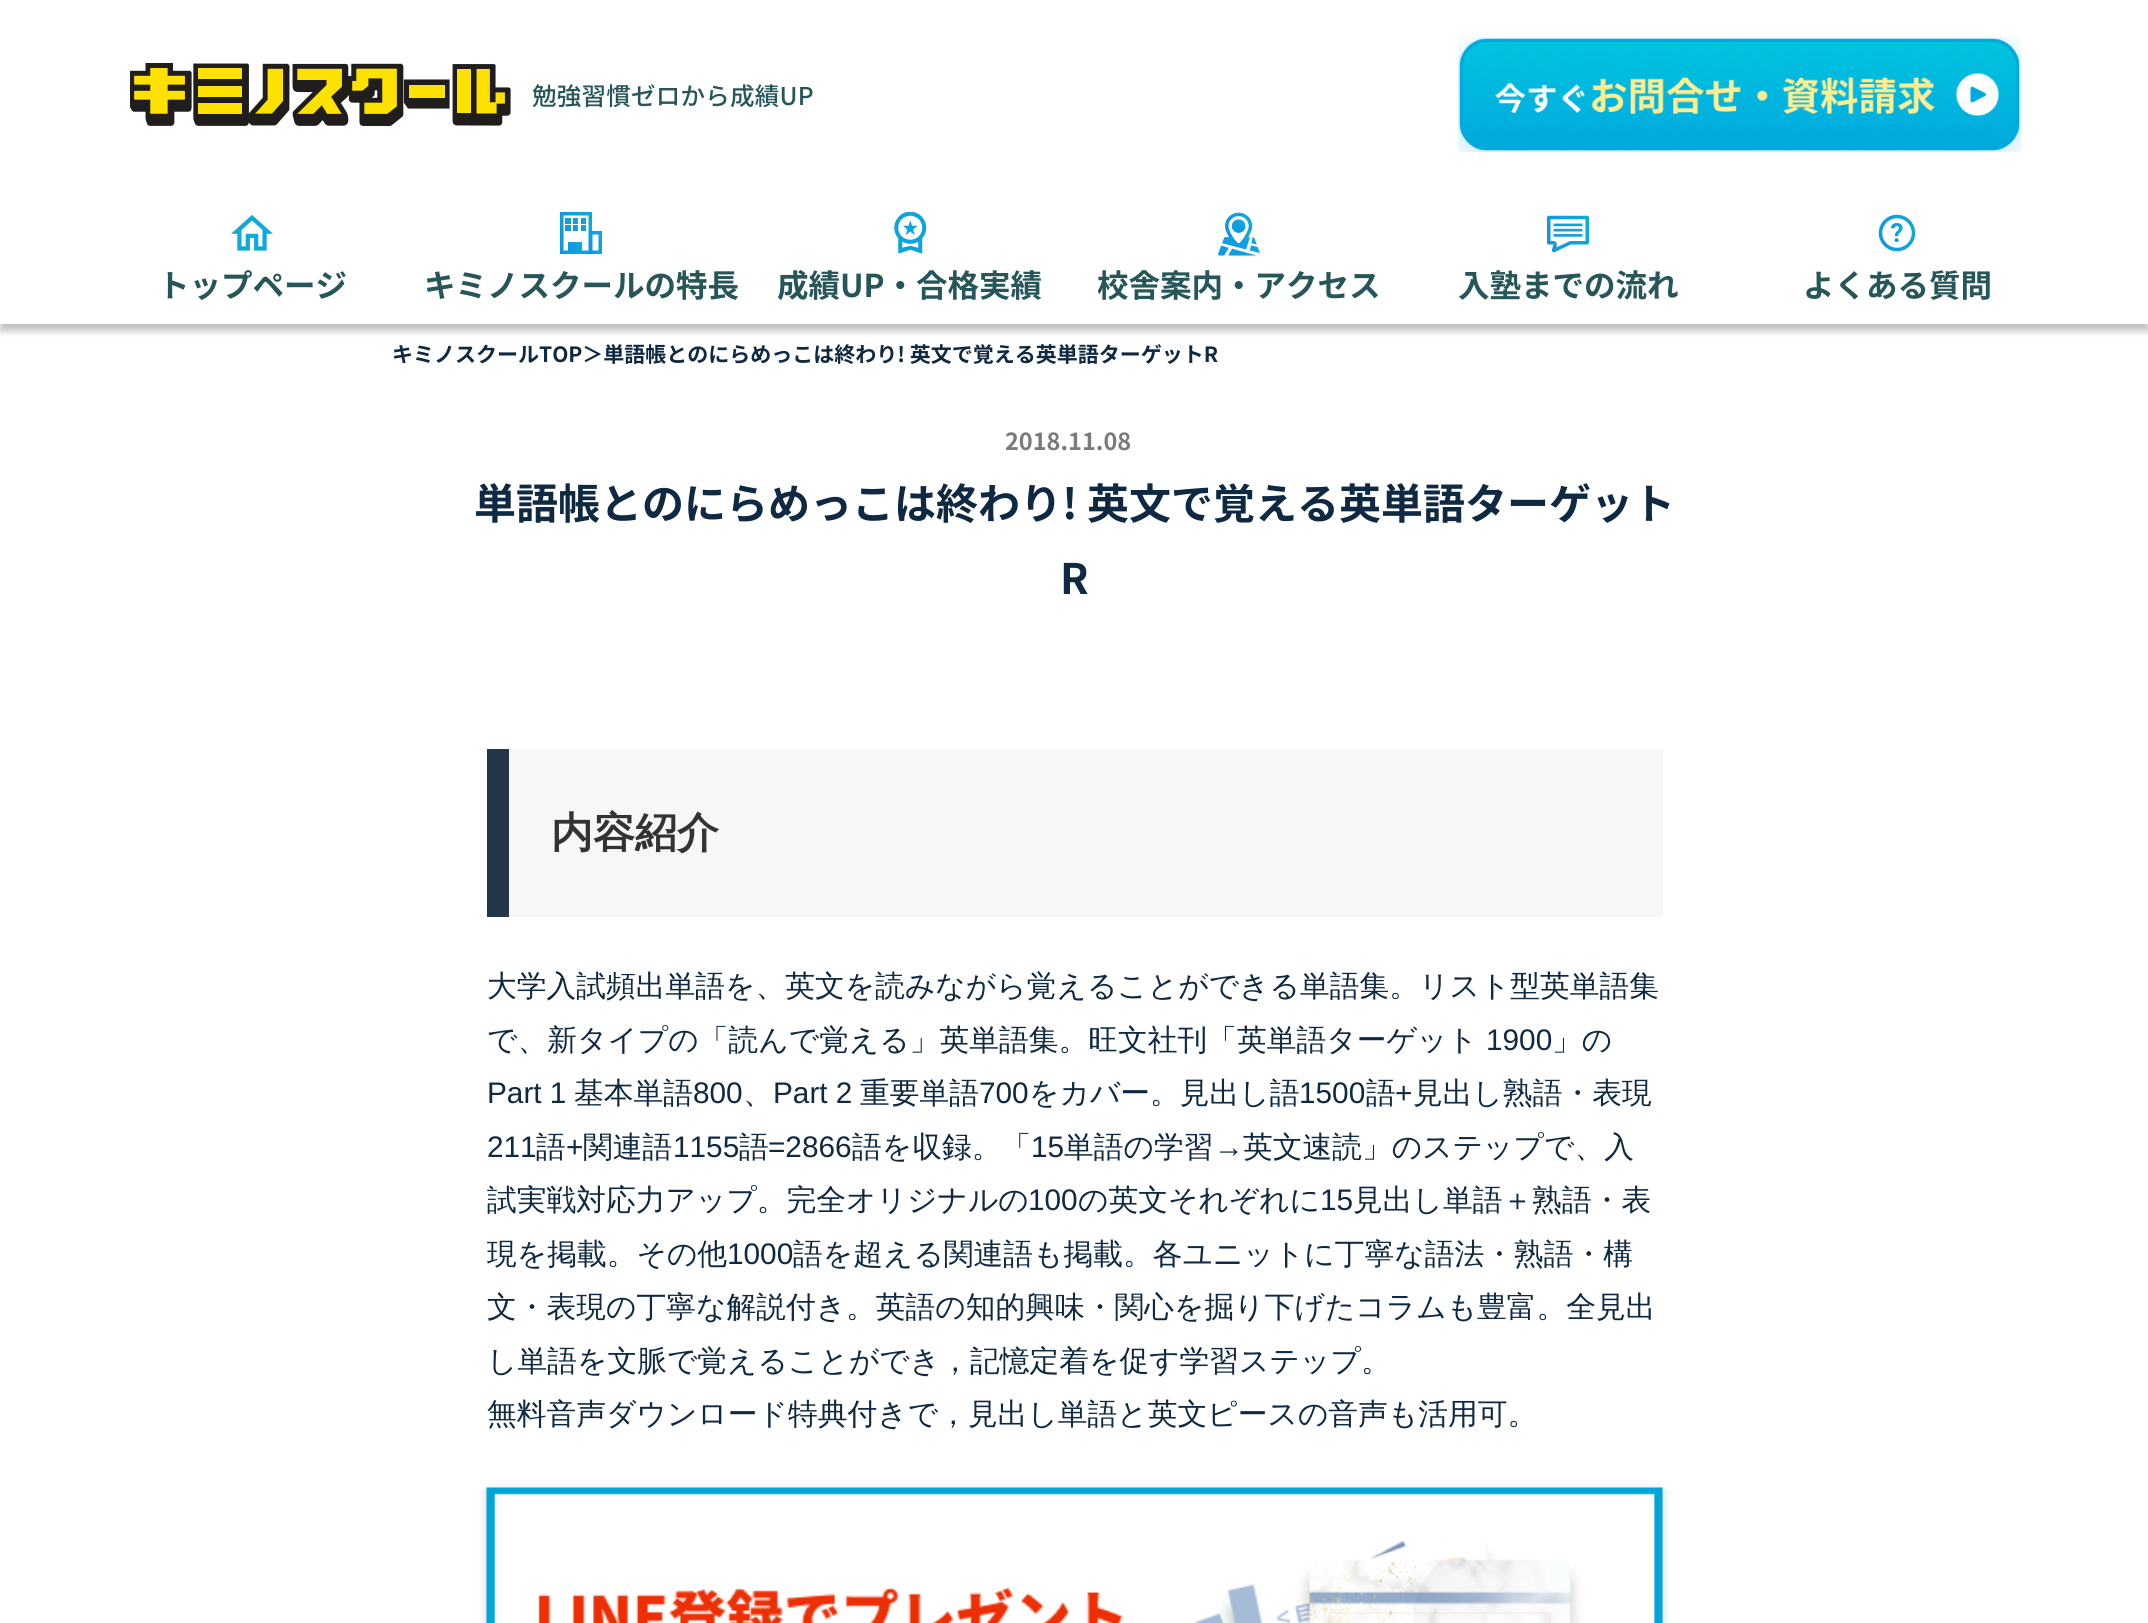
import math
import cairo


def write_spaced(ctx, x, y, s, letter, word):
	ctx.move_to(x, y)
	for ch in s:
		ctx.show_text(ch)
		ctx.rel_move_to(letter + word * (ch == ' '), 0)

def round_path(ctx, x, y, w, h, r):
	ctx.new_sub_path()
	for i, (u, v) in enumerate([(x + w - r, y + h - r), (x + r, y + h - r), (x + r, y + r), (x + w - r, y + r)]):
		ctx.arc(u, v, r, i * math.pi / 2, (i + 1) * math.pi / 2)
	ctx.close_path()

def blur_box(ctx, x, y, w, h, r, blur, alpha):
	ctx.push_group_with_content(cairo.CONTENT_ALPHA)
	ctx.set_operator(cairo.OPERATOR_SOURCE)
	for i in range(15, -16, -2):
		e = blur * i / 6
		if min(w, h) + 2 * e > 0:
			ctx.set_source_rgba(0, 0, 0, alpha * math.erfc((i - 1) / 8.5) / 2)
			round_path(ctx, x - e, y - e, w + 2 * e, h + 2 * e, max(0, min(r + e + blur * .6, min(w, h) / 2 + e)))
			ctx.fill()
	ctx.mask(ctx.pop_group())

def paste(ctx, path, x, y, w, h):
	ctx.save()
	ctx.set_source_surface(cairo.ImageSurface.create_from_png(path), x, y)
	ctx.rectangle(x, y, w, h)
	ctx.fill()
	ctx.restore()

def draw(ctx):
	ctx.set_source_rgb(1, 1, 1)
	ctx.paint()
	ctx.set_source_rgb(0, 0, 0)
	blur_box(ctx, 0, 7, 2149, 324, 0, 3.5, 0.25)
	ctx.set_source_rgb(1, 1, 1)
	ctx.rectangle(0, 1, 2148, 323)
	ctx.fill()
	paste(ctx, 'media/1.png', 130, 63, 381, 63)
	ctx.select_font_face('Noto Sans JP Medium')
	ctx.set_font_size(24.5)
	ctx.set_source_rgb(0.149, 0.337, 0.349)
	write_spaced(ctx, 532, 105, '勉強習慣ゼロから成績UP', 0.25, 0)
	paste(ctx, 'media/2.png', 1458, 37, 563, 115)
	paste(ctx, 'media/3.png', 231, 215, 42, 36)
	ctx.select_font_face('Noto Sans JP', cairo.FONT_SLANT_NORMAL, cairo.FONT_WEIGHT_BOLD)
	ctx.set_font_size(31.5)
	ctx.move_to(158, 297)
	ctx.show_text('トップページ')
	paste(ctx, 'media/4.png', 560, 212, 42, 42)
	ctx.move_to(424, 297)
	ctx.show_text('キミノスクールの特長')
	paste(ctx, 'media/5.png', 894, 212, 33, 42)
	ctx.move_to(777, 297)
	ctx.show_text('成績UP・合格実績')
	paste(ctx, 'media/6.png', 1218, 212, 42, 44)
	ctx.move_to(1097, 297)
	ctx.show_text('校舎案内・アクセス')
	paste(ctx, 'media/7.png', 1547, 215, 42, 38)
	ctx.move_to(1458, 297)
	ctx.show_text('入塾までの流れ')
	paste(ctx, 'media/8.png', 1878, 214, 38, 38)
	ctx.move_to(1803, 297)
	ctx.show_text('よくある質問')
	ctx.set_font_size(21)
	ctx.set_source_rgb(0.059, 0.161, 0.259)
	ctx.move_to(392, 362)
	ctx.show_text('キミノスクールTOP＞単語帳とのにらめっこは終わり! 英文で覚える英単語ターゲットR')
	ctx.set_font_size(23.5)
	ctx.set_source_rgb(0.482, 0.482, 0.482)
	ctx.move_to(1005, 450)
	ctx.show_text('2018.11.08')
	ctx.set_font_size(42)
	ctx.set_source_rgb(0.059, 0.161, 0.259)
	ctx.move_to(474, 519)
	ctx.show_text('単語帳とのにらめっこは終わり! 英文で覚える英単語ターゲット')
	ctx.move_to(1060, 594)
	ctx.show_text('R')
	ctx.set_source_rgb(0.965, 0.965, 0.965)
	ctx.rectangle(509, 749, 1154, 168)
	ctx.fill()
	ctx.set_source_rgb(0.141, 0.216, 0.278)
	ctx.rectangle(487, 749, 22, 168)
	ctx.fill()
	ctx.select_font_face('WenQuanYi Zen Hei', cairo.FONT_SLANT_NORMAL, cairo.FONT_WEIGHT_BOLD)
	ctx.set_source_rgb(0.2, 0.2, 0.2)
	ctx.move_to(551, 847)
	ctx.show_text('内容紹介')
	ctx.select_font_face('WenQuanYi Zen Hei Medium')
	ctx.set_font_size(29.75)
	ctx.set_source_rgb(0.059, 0.161, 0.259)
	ctx.move_to(487, 996)
	ctx.show_text('大学入試頻出単語を、英文を読みながら覚えることができる単語集。リスト型英単語集')
	ctx.move_to(487, 1050)
	ctx.show_text('で、新タイプの「読んで覚える」英単語集。旺文社刊「英単語ターゲット')
	ctx.select_font_face('Liberation Sans')
	ctx.move_to(1486, 1050)
	ctx.show_text('1900')
	ctx.select_font_face('WenQuanYi Zen Hei Medium')
	ctx.move_to(1552, 1050)
	ctx.show_text('」の')
	ctx.select_font_face('Liberation Sans')
	ctx.move_to(487, 1103)
	ctx.show_text('Part 1')
	ctx.select_font_face('WenQuanYi Zen Hei Medium')
	ctx.move_to(574, 1103)
	ctx.show_text('基本単語')
	ctx.select_font_face('Liberation Sans')
	ctx.move_to(693, 1103)
	ctx.show_text('800')
	ctx.move_to(773, 1103)
	ctx.show_text('Part 2')
	ctx.select_font_face('WenQuanYi Zen Hei Medium')
	ctx.move_to(860, 1103)
	ctx.show_text('重要単語')
	ctx.select_font_face('Liberation Sans')
	ctx.move_to(979, 1103)
	ctx.show_text('700')
	ctx.select_font_face('WenQuanYi Zen Hei Medium')
	ctx.move_to(1029, 1103)
	ctx.show_text('をカバー。見出し語')
	ctx.select_font_face('Liberation Sans')
	ctx.move_to(1299, 1103)
	ctx.show_text('1500')
	ctx.select_font_face('WenQuanYi Zen Hei Medium')
	ctx.move_to(1366, 1103)
	ctx.show_text('語')
	ctx.select_font_face('Liberation Sans')
	ctx.move_to(1395, 1103)
	ctx.show_text('+')
	ctx.select_font_face('WenQuanYi Zen Hei Medium')
	ctx.move_to(1413, 1103)
	ctx.show_text('見出し熟語・表現')
	ctx.move_to(743, 1103)
	ctx.show_text('、')
	ctx.select_font_face('Liberation Sans')
	ctx.move_to(487, 1157)
	ctx.show_text('211')
	ctx.select_font_face('WenQuanYi Zen Hei Medium')
	ctx.move_to(536, 1157)
	ctx.show_text('語')
	ctx.select_font_face('Liberation Sans')
	ctx.move_to(566, 1157)
	ctx.show_text('+')
	ctx.select_font_face('WenQuanYi Zen Hei Medium')
	ctx.move_to(583, 1157)
	ctx.show_text('関連語')
	ctx.select_font_face('Liberation Sans')
	ctx.move_to(673, 1157)
	ctx.show_text('1155')
	ctx.select_font_face('WenQuanYi Zen Hei Medium')
	ctx.move_to(739, 1157)
	ctx.show_text('語')
	ctx.select_font_face('Liberation Sans')
	ctx.move_to(768, 1157)
	ctx.show_text('=2866')
	ctx.select_font_face('WenQuanYi Zen Hei Medium')
	ctx.move_to(852, 1157)
	ctx.show_text('語を収録。「')
	ctx.select_font_face('Liberation Sans')
	ctx.move_to(1031, 1157)
	ctx.show_text('15')
	ctx.select_font_face('WenQuanYi Zen Hei Medium')
	ctx.move_to(1064, 1157)
	ctx.show_text('単語の学習')
	ctx.select_font_face('Liberation Sans')
	ctx.move_to(1214, 1157)
	ctx.show_text('→')
	ctx.select_font_face('WenQuanYi Zen Hei Medium')
	ctx.move_to(1243, 1157)
	ctx.show_text('英文速読」のステップで、入')
	ctx.move_to(487, 1210)
	ctx.show_text('試実戦対応力アップ。完全オリジナルの')
	ctx.select_font_face('Liberation Sans')
	ctx.move_to(1028, 1210)
	ctx.show_text('100')
	ctx.select_font_face('WenQuanYi Zen Hei Medium')
	ctx.move_to(1078, 1210)
	ctx.show_text('の英文それぞれに')
	ctx.select_font_face('Liberation Sans')
	ctx.move_to(1320, 1210)
	ctx.show_text('15')
	ctx.select_font_face('WenQuanYi Zen Hei Medium')
	ctx.move_to(1353, 1210)
	ctx.show_text('見出し単語＋熟語・表')
	ctx.move_to(487, 1264)
	ctx.show_text('現を掲載。その他')
	ctx.select_font_face('Liberation Sans')
	ctx.move_to(727, 1264)
	ctx.show_text('1000')
	ctx.select_font_face('WenQuanYi Zen Hei Medium')
	for x, y, s in [
		(793, 1264, '語を超える関連語も掲載。各ユニットに丁寧な語法・熟語・構'),
		(487, 1317, '文・表現の丁寧な解説付き。英語の知的興味・関心を掘り下げたコラムも豊富。全見出'),
		(487, 1371, 'し単語を文脈で覚えることができ，記憶定着を促す学習ステップ。'),
		(487, 1424, '無料音声ダウンロード特典付きで，見出し単語と英文ピースの音声も活用可。'),
	]:
		ctx.move_to(x, y)
		ctx.show_text(s)
	ctx.set_source_rgb(0, 0, 0)
	blur_box(ctx, 487, 1491, 1176, 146, 0, 4.5, 0.2)
	paste(ctx, 'media/9.png', 486, 1487, 1177, 136)


surface = cairo.ImageSurface(cairo.FORMAT_RGB24, 2148, 1623)
ctx = cairo.Context(surface)
options = cairo.FontOptions()
options.set_hint_metrics(cairo.HINT_METRICS_OFF)
options.set_hint_style(cairo.HINT_STYLE_NONE)
ctx.set_font_options(options)
ctx.set_miter_limit(4)
draw(ctx)
surface.write_to_png('image.png')
